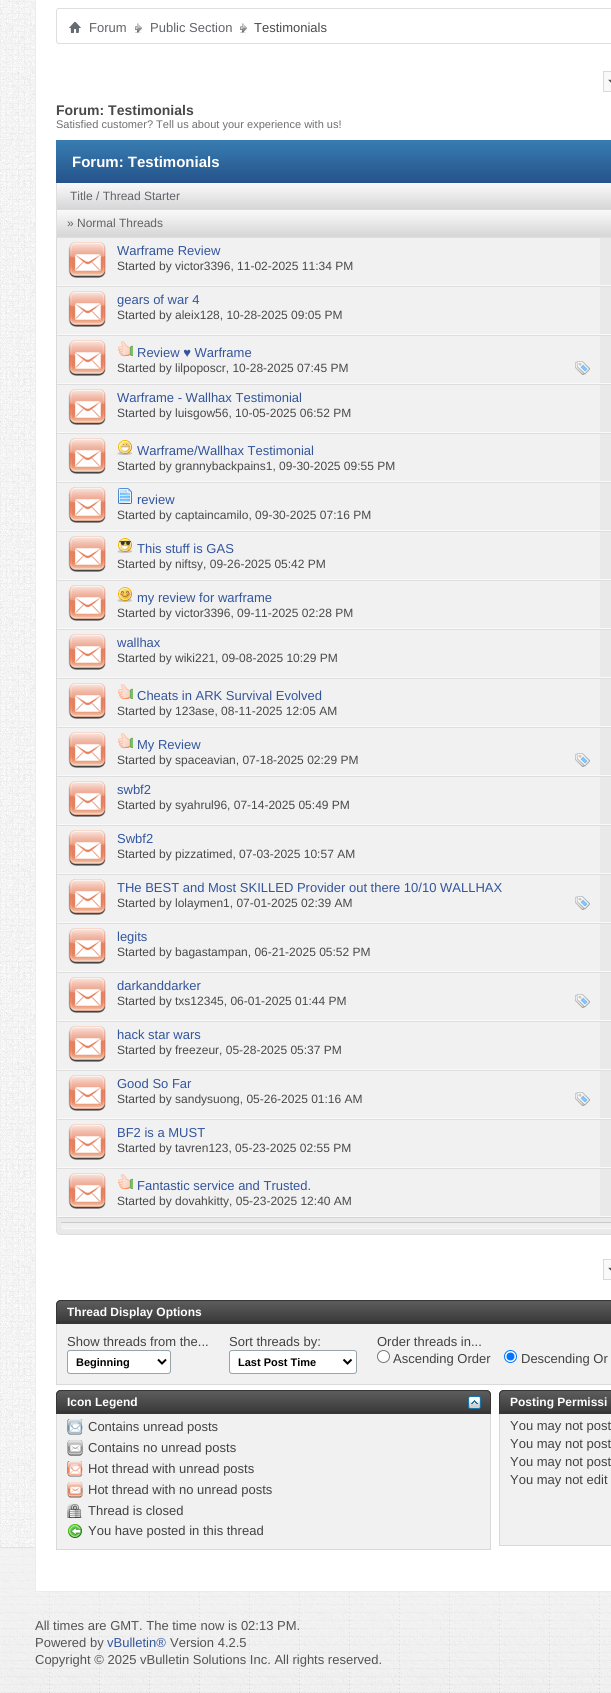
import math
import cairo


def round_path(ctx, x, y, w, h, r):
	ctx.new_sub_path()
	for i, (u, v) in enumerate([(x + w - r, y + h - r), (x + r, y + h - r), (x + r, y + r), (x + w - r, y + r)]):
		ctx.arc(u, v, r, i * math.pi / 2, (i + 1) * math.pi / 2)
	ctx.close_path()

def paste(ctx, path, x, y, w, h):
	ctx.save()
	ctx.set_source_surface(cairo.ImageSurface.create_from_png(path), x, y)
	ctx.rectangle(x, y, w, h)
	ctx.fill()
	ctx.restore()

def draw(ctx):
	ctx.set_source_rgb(1, 1, 1)
	ctx.paint()
	paste(ctx, 'media/1.png', 0, 0, 35, 1548)
	paste(ctx, 'media/2.png', 0, 1547, 611, 146)
	ctx.set_source_rgb(1, 1, 1)
	ctx.rectangle(36, 1547, 575, 44)
	ctx.fill()
	ctx.rectangle(35.5, -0.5, 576, 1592)
	ctx.set_source_rgb(0.922, 0.922, 0.922)
	ctx.set_line_width(1)
	ctx.stroke()
	round_path(ctx, 56.5, 8.5, 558, 35, 2.5)
	ctx.set_source_rgb(0.871, 0.871, 0.871)
	ctx.stroke()
	paste(ctx, 'media/3.png', 69, 21, 12, 12)
	paste(ctx, 'media/4.png', 135, 23, 7, 10)
	ctx.select_font_face('Liberation Sans')
	ctx.set_font_size(13)
	ctx.set_source_rgb(0.376, 0.388, 0.408)
	ctx.move_to(89, 32)
	ctx.show_text('Forum')
	paste(ctx, 'media/4.png', 240, 23, 7, 10)
	ctx.move_to(150, 32)
	ctx.show_text('Public Section')
	ctx.set_source_rgb(0.286, 0.286, 0.286)
	ctx.move_to(254, 32)
	ctx.show_text('Testimonials')
	ctx.set_source_rgb(0.973, 0.973, 0.973)
	ctx.rectangle(604, 71, 7, 21)
	ctx.fill()
	paste(ctx, 'media/5.png', 608, 79, 3, 4)
	ctx.rectangle(603.5, 71.5, 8, 20)
	ctx.set_source_rgb(0.851, 0.851, 0.851)
	ctx.stroke()
	ctx.select_font_face('Liberation Sans', cairo.FONT_SLANT_NORMAL, cairo.FONT_WEIGHT_BOLD)
	ctx.set_font_size(14)
	ctx.set_source_rgb(0.286, 0.286, 0.286)
	ctx.move_to(56, 115)
	ctx.show_text('Forum: Testimonials')
	ctx.select_font_face('Liberation Sans')
	ctx.set_font_size(11.05)
	ctx.set_source_rgb(0.435, 0.435, 0.435)
	ctx.move_to(56, 128)
	ctx.show_text('Satisfied customer? Tell us about your experience with us!')
	paste(ctx, 'media/6.png', 56, 140, 555, 43)
	ctx.select_font_face('Liberation Sans', cairo.FONT_SLANT_NORMAL, cairo.FONT_WEIGHT_BOLD)
	ctx.set_font_size(15)
	ctx.set_source_rgb(1, 1, 1)
	ctx.move_to(72, 167)
	ctx.show_text('Forum: Testimonials')
	paste(ctx, 'media/7.png', 57, 183, 554, 26)
	ctx.set_source_rgb(0.851, 0.851, 0.851)
	ctx.rectangle(56, 209, 555, 1)
	ctx.fill()
	ctx.set_source_rgb(0.871, 0.871, 0.871)
	ctx.rectangle(56, 183, 1, 27)
	ctx.fill()
	ctx.select_font_face('Liberation Sans')
	ctx.set_font_size(12)
	ctx.set_source_rgb(0.376, 0.388, 0.408)
	ctx.move_to(70, 200)
	ctx.show_text('Title / Thread Starter')
	paste(ctx, 'media/7.png', 57, 210, 554, 26)
	ctx.set_source_rgb(0.851, 0.851, 0.851)
	ctx.rectangle(56, 236, 555, 1)
	ctx.fill()
	ctx.set_source_rgb(0.871, 0.871, 0.871)
	ctx.rectangle(56, 210, 1, 27)
	ctx.fill()
	ctx.set_source_rgb(0.376, 0.388, 0.408)
	ctx.move_to(67, 227)
	ctx.show_text('» Normal Threads')
	ctx.set_source_rgb(0.945, 0.945, 0.945)
	ctx.rectangle(57, 238, 543, 47)
	ctx.fill()
	ctx.set_source_rgb(0.871, 0.871, 0.871)
	ctx.rectangle(56, 237, 555, 1)
	ctx.fill()
	ctx.set_source_rgb(0.976, 0.976, 0.976)
	ctx.rectangle(56, 285, 555, 1)
	ctx.fill()
	ctx.set_source_rgb(0.851, 0.851, 0.851)
	ctx.rectangle(56, 237, 1, 49)
	ctx.fill()
	paste(ctx, 'media/8.png', 68, 242, 38, 36)
	ctx.set_font_size(13)
	ctx.set_source_rgb(0.2, 0.333, 0.612)
	ctx.move_to(117, 255)
	ctx.show_text('Warframe Review')
	ctx.set_font_size(12)
	ctx.set_source_rgb(0.286, 0.286, 0.286)
	ctx.move_to(117, 270)
	ctx.show_text('Started by victor3396, 11-02-2025 11:34 PM')
	ctx.set_source_rgb(0.914, 0.914, 0.914)
	ctx.rectangle(600, 238, 11, 47)
	ctx.fill()
	ctx.set_source_rgb(0.945, 0.945, 0.945)
	ctx.rectangle(57, 287, 543, 47)
	ctx.fill()
	ctx.set_source_rgb(0.871, 0.871, 0.871)
	ctx.rectangle(56, 286, 555, 1)
	ctx.fill()
	ctx.set_source_rgb(0.976, 0.976, 0.976)
	ctx.rectangle(56, 334, 555, 1)
	ctx.fill()
	ctx.set_source_rgb(0.851, 0.851, 0.851)
	ctx.rectangle(56, 286, 1, 49)
	ctx.fill()
	paste(ctx, 'media/8.png', 68, 291, 38, 36)
	ctx.set_font_size(13)
	ctx.set_source_rgb(0.2, 0.333, 0.612)
	ctx.move_to(117, 304)
	ctx.show_text('gears of war 4')
	ctx.set_font_size(12)
	ctx.set_source_rgb(0.286, 0.286, 0.286)
	ctx.move_to(117, 319)
	ctx.show_text('Started by aleix128, 10-28-2025 09:05 PM')
	ctx.set_source_rgb(0.914, 0.914, 0.914)
	ctx.rectangle(600, 287, 11, 47)
	ctx.fill()
	ctx.set_source_rgb(0.945, 0.945, 0.945)
	ctx.rectangle(57, 336, 543, 47)
	ctx.fill()
	ctx.set_source_rgb(0.871, 0.871, 0.871)
	ctx.rectangle(56, 335, 555, 1)
	ctx.fill()
	ctx.set_source_rgb(0.976, 0.976, 0.976)
	ctx.rectangle(56, 383, 555, 1)
	ctx.fill()
	ctx.set_source_rgb(0.851, 0.851, 0.851)
	ctx.rectangle(56, 335, 1, 49)
	ctx.fill()
	paste(ctx, 'media/8.png', 68, 340, 38, 36)
	paste(ctx, 'media/9.png', 118, 341, 15, 16)
	ctx.set_font_size(13)
	ctx.set_source_rgb(0.2, 0.333, 0.612)
	ctx.move_to(137, 357)
	ctx.show_text('Review ♥ Warframe')
	ctx.set_font_size(12)
	ctx.set_source_rgb(0.286, 0.286, 0.286)
	ctx.move_to(117, 372)
	ctx.show_text('Started by lilpoposcr, 10-28-2025 07:45 PM')
	paste(ctx, 'media/10.png', 575, 361, 15, 14)
	ctx.set_source_rgb(0.914, 0.914, 0.914)
	ctx.rectangle(600, 336, 11, 47)
	ctx.fill()
	ctx.set_source_rgb(0.945, 0.945, 0.945)
	ctx.rectangle(57, 385, 543, 47)
	ctx.fill()
	ctx.set_source_rgb(0.871, 0.871, 0.871)
	ctx.rectangle(56, 384, 555, 1)
	ctx.fill()
	ctx.set_source_rgb(0.976, 0.976, 0.976)
	ctx.rectangle(56, 432, 555, 1)
	ctx.fill()
	ctx.set_source_rgb(0.851, 0.851, 0.851)
	ctx.rectangle(56, 384, 1, 49)
	ctx.fill()
	paste(ctx, 'media/8.png', 68, 389, 38, 36)
	ctx.set_font_size(13)
	ctx.set_source_rgb(0.2, 0.333, 0.612)
	ctx.move_to(117, 402)
	ctx.show_text('Warframe - Wallhax Testimonial')
	ctx.set_font_size(12)
	ctx.set_source_rgb(0.286, 0.286, 0.286)
	ctx.move_to(117, 417)
	ctx.show_text('Started by luisgow56, 10-05-2025 06:52 PM')
	ctx.set_source_rgb(0.914, 0.914, 0.914)
	ctx.rectangle(600, 385, 11, 47)
	ctx.fill()
	ctx.set_source_rgb(0.945, 0.945, 0.945)
	ctx.rectangle(57, 434, 543, 47)
	ctx.fill()
	ctx.set_source_rgb(0.871, 0.871, 0.871)
	ctx.rectangle(56, 433, 555, 1)
	ctx.fill()
	ctx.set_source_rgb(0.976, 0.976, 0.976)
	ctx.rectangle(56, 481, 555, 1)
	ctx.fill()
	ctx.set_source_rgb(0.851, 0.851, 0.851)
	ctx.rectangle(56, 433, 1, 49)
	ctx.fill()
	paste(ctx, 'media/8.png', 68, 438, 38, 36)
	paste(ctx, 'media/11.png', 117, 440, 15, 15)
	ctx.set_font_size(13)
	ctx.set_source_rgb(0.2, 0.333, 0.612)
	ctx.move_to(137, 455)
	ctx.show_text('Warframe/Wallhax Testimonial')
	ctx.set_font_size(12)
	ctx.set_source_rgb(0.286, 0.286, 0.286)
	ctx.move_to(117, 470)
	ctx.show_text('Started by grannybackpains1, 09-30-2025 09:55 PM')
	ctx.set_source_rgb(0.914, 0.914, 0.914)
	ctx.rectangle(600, 434, 11, 47)
	ctx.fill()
	ctx.set_source_rgb(0.945, 0.945, 0.945)
	ctx.rectangle(57, 483, 543, 47)
	ctx.fill()
	ctx.set_source_rgb(0.871, 0.871, 0.871)
	ctx.rectangle(56, 482, 555, 1)
	ctx.fill()
	ctx.set_source_rgb(0.976, 0.976, 0.976)
	ctx.rectangle(56, 530, 555, 1)
	ctx.fill()
	ctx.set_source_rgb(0.851, 0.851, 0.851)
	ctx.rectangle(56, 482, 1, 49)
	ctx.fill()
	paste(ctx, 'media/8.png', 68, 487, 38, 36)
	paste(ctx, 'media/12.png', 118, 488, 14, 16)
	ctx.set_font_size(13)
	ctx.set_source_rgb(0.2, 0.333, 0.612)
	ctx.move_to(137, 504)
	ctx.show_text('review')
	ctx.set_font_size(12)
	ctx.set_source_rgb(0.286, 0.286, 0.286)
	ctx.move_to(117, 519)
	ctx.show_text('Started by captaincamilo, 09-30-2025 07:16 PM')
	ctx.set_source_rgb(0.914, 0.914, 0.914)
	ctx.rectangle(600, 483, 11, 47)
	ctx.fill()
	ctx.set_source_rgb(0.945, 0.945, 0.945)
	ctx.rectangle(57, 532, 543, 47)
	ctx.fill()
	ctx.set_source_rgb(0.871, 0.871, 0.871)
	ctx.rectangle(56, 531, 555, 1)
	ctx.fill()
	ctx.set_source_rgb(0.976, 0.976, 0.976)
	ctx.rectangle(56, 579, 555, 1)
	ctx.fill()
	ctx.set_source_rgb(0.851, 0.851, 0.851)
	ctx.rectangle(56, 531, 1, 49)
	ctx.fill()
	paste(ctx, 'media/8.png', 68, 536, 38, 36)
	paste(ctx, 'media/13.png', 117, 538, 15, 15)
	ctx.set_font_size(13)
	ctx.set_source_rgb(0.2, 0.333, 0.612)
	ctx.move_to(137, 553)
	ctx.show_text('This stuff is GAS')
	ctx.set_font_size(12)
	ctx.set_source_rgb(0.286, 0.286, 0.286)
	ctx.move_to(117, 568)
	ctx.show_text('Started by niftsy, 09-26-2025 05:42 PM')
	ctx.set_source_rgb(0.914, 0.914, 0.914)
	ctx.rectangle(600, 532, 11, 47)
	ctx.fill()
	ctx.set_source_rgb(0.945, 0.945, 0.945)
	ctx.rectangle(57, 581, 543, 47)
	ctx.fill()
	ctx.set_source_rgb(0.871, 0.871, 0.871)
	ctx.rectangle(56, 580, 555, 1)
	ctx.fill()
	ctx.set_source_rgb(0.976, 0.976, 0.976)
	ctx.rectangle(56, 628, 555, 1)
	ctx.fill()
	ctx.set_source_rgb(0.851, 0.851, 0.851)
	ctx.rectangle(56, 580, 1, 49)
	ctx.fill()
	paste(ctx, 'media/8.png', 68, 585, 38, 36)
	paste(ctx, 'media/14.png', 117, 587, 15, 15)
	ctx.set_font_size(13)
	ctx.set_source_rgb(0.2, 0.333, 0.612)
	ctx.move_to(137, 602)
	ctx.show_text('my review for warframe')
	ctx.set_font_size(12)
	ctx.set_source_rgb(0.286, 0.286, 0.286)
	ctx.move_to(117, 617)
	ctx.show_text('Started by victor3396, 09-11-2025 02:28 PM')
	ctx.set_source_rgb(0.914, 0.914, 0.914)
	ctx.rectangle(600, 581, 11, 47)
	ctx.fill()
	ctx.set_source_rgb(0.945, 0.945, 0.945)
	ctx.rectangle(57, 630, 543, 47)
	ctx.fill()
	ctx.set_source_rgb(0.871, 0.871, 0.871)
	ctx.rectangle(56, 629, 555, 1)
	ctx.fill()
	ctx.set_source_rgb(0.976, 0.976, 0.976)
	ctx.rectangle(56, 677, 555, 1)
	ctx.fill()
	ctx.set_source_rgb(0.851, 0.851, 0.851)
	ctx.rectangle(56, 629, 1, 49)
	ctx.fill()
	paste(ctx, 'media/8.png', 68, 634, 38, 36)
	ctx.set_font_size(13)
	ctx.set_source_rgb(0.2, 0.333, 0.612)
	ctx.move_to(117, 647)
	ctx.show_text('wallhax')
	ctx.set_font_size(12)
	ctx.set_source_rgb(0.286, 0.286, 0.286)
	ctx.move_to(117, 662)
	ctx.show_text('Started by wiki221, 09-08-2025 10:29 PM')
	ctx.set_source_rgb(0.914, 0.914, 0.914)
	ctx.rectangle(600, 630, 11, 47)
	ctx.fill()
	ctx.set_source_rgb(0.945, 0.945, 0.945)
	ctx.rectangle(57, 679, 543, 47)
	ctx.fill()
	ctx.set_source_rgb(0.871, 0.871, 0.871)
	ctx.rectangle(56, 678, 555, 1)
	ctx.fill()
	ctx.set_source_rgb(0.976, 0.976, 0.976)
	ctx.rectangle(56, 726, 555, 1)
	ctx.fill()
	ctx.set_source_rgb(0.851, 0.851, 0.851)
	ctx.rectangle(56, 678, 1, 49)
	ctx.fill()
	paste(ctx, 'media/8.png', 68, 683, 38, 36)
	paste(ctx, 'media/9.png', 118, 684, 15, 16)
	ctx.set_font_size(13)
	ctx.set_source_rgb(0.2, 0.333, 0.612)
	ctx.move_to(137, 700)
	ctx.show_text('Cheats in ARK Survival Evolved')
	ctx.set_font_size(12)
	ctx.set_source_rgb(0.286, 0.286, 0.286)
	ctx.move_to(117, 715)
	ctx.show_text('Started by 123ase, 08-11-2025 12:05 AM')
	ctx.set_source_rgb(0.914, 0.914, 0.914)
	ctx.rectangle(600, 679, 11, 47)
	ctx.fill()
	ctx.set_source_rgb(0.945, 0.945, 0.945)
	ctx.rectangle(57, 728, 543, 47)
	ctx.fill()
	ctx.set_source_rgb(0.871, 0.871, 0.871)
	ctx.rectangle(56, 727, 555, 1)
	ctx.fill()
	ctx.set_source_rgb(0.976, 0.976, 0.976)
	ctx.rectangle(56, 775, 555, 1)
	ctx.fill()
	ctx.set_source_rgb(0.851, 0.851, 0.851)
	ctx.rectangle(56, 727, 1, 49)
	ctx.fill()
	paste(ctx, 'media/8.png', 68, 732, 38, 36)
	paste(ctx, 'media/9.png', 118, 733, 15, 16)
	ctx.set_font_size(13)
	ctx.set_source_rgb(0.2, 0.333, 0.612)
	ctx.move_to(137, 749)
	ctx.show_text('My Review')
	ctx.set_font_size(12)
	ctx.set_source_rgb(0.286, 0.286, 0.286)
	ctx.move_to(117, 764)
	ctx.show_text('Started by spaceavian, 07-18-2025 02:29 PM')
	paste(ctx, 'media/10.png', 575, 753, 15, 14)
	ctx.set_source_rgb(0.914, 0.914, 0.914)
	ctx.rectangle(600, 728, 11, 47)
	ctx.fill()
	ctx.set_source_rgb(0.945, 0.945, 0.945)
	ctx.rectangle(57, 777, 543, 47)
	ctx.fill()
	ctx.set_source_rgb(0.871, 0.871, 0.871)
	ctx.rectangle(56, 776, 555, 1)
	ctx.fill()
	ctx.set_source_rgb(0.976, 0.976, 0.976)
	ctx.rectangle(56, 824, 555, 1)
	ctx.fill()
	ctx.set_source_rgb(0.851, 0.851, 0.851)
	ctx.rectangle(56, 776, 1, 49)
	ctx.fill()
	paste(ctx, 'media/8.png', 68, 781, 38, 36)
	ctx.set_font_size(13)
	ctx.set_source_rgb(0.2, 0.333, 0.612)
	ctx.move_to(117, 794)
	ctx.show_text('swbf2')
	ctx.set_font_size(12)
	ctx.set_source_rgb(0.286, 0.286, 0.286)
	ctx.move_to(117, 809)
	ctx.show_text('Started by syahrul96, 07-14-2025 05:49 PM')
	ctx.set_source_rgb(0.914, 0.914, 0.914)
	ctx.rectangle(600, 777, 11, 47)
	ctx.fill()
	ctx.set_source_rgb(0.945, 0.945, 0.945)
	ctx.rectangle(57, 826, 543, 47)
	ctx.fill()
	ctx.set_source_rgb(0.871, 0.871, 0.871)
	ctx.rectangle(56, 825, 555, 1)
	ctx.fill()
	ctx.set_source_rgb(0.976, 0.976, 0.976)
	ctx.rectangle(56, 873, 555, 1)
	ctx.fill()
	ctx.set_source_rgb(0.851, 0.851, 0.851)
	ctx.rectangle(56, 825, 1, 49)
	ctx.fill()
	paste(ctx, 'media/8.png', 68, 830, 38, 36)
	ctx.set_font_size(13)
	ctx.set_source_rgb(0.2, 0.333, 0.612)
	ctx.move_to(117, 843)
	ctx.show_text('Swbf2')
	ctx.set_font_size(12)
	ctx.set_source_rgb(0.286, 0.286, 0.286)
	ctx.move_to(117, 858)
	ctx.show_text('Started by pizzatimed, 07-03-2025 10:57 AM')
	ctx.set_source_rgb(0.914, 0.914, 0.914)
	ctx.rectangle(600, 826, 11, 47)
	ctx.fill()
	ctx.set_source_rgb(0.945, 0.945, 0.945)
	ctx.rectangle(57, 875, 543, 47)
	ctx.fill()
	ctx.set_source_rgb(0.871, 0.871, 0.871)
	ctx.rectangle(56, 874, 555, 1)
	ctx.fill()
	ctx.set_source_rgb(0.976, 0.976, 0.976)
	ctx.rectangle(56, 922, 555, 1)
	ctx.fill()
	ctx.set_source_rgb(0.851, 0.851, 0.851)
	ctx.rectangle(56, 874, 1, 49)
	ctx.fill()
	paste(ctx, 'media/8.png', 68, 879, 38, 36)
	ctx.set_font_size(13)
	ctx.set_source_rgb(0.2, 0.333, 0.612)
	ctx.move_to(117, 892)
	ctx.show_text('THe BEST and Most SKILLED Provider out there 10/10 WALLHAX')
	ctx.set_font_size(12)
	ctx.set_source_rgb(0.286, 0.286, 0.286)
	ctx.move_to(117, 907)
	ctx.show_text('Started by lolaymen1, 07-01-2025 02:39 AM')
	paste(ctx, 'media/10.png', 575, 896, 15, 14)
	ctx.set_source_rgb(0.914, 0.914, 0.914)
	ctx.rectangle(600, 875, 11, 47)
	ctx.fill()
	ctx.set_source_rgb(0.945, 0.945, 0.945)
	ctx.rectangle(57, 924, 543, 47)
	ctx.fill()
	ctx.set_source_rgb(0.871, 0.871, 0.871)
	ctx.rectangle(56, 923, 555, 1)
	ctx.fill()
	ctx.set_source_rgb(0.976, 0.976, 0.976)
	ctx.rectangle(56, 971, 555, 1)
	ctx.fill()
	ctx.set_source_rgb(0.851, 0.851, 0.851)
	ctx.rectangle(56, 923, 1, 49)
	ctx.fill()
	paste(ctx, 'media/8.png', 68, 928, 38, 36)
	ctx.set_font_size(13)
	ctx.set_source_rgb(0.2, 0.333, 0.612)
	ctx.move_to(117, 941)
	ctx.show_text('legits')
	ctx.set_font_size(12)
	ctx.set_source_rgb(0.286, 0.286, 0.286)
	ctx.move_to(117, 956)
	ctx.show_text('Started by bagastampan, 06-21-2025 05:52 PM')
	ctx.set_source_rgb(0.914, 0.914, 0.914)
	ctx.rectangle(600, 924, 11, 47)
	ctx.fill()
	ctx.set_source_rgb(0.945, 0.945, 0.945)
	ctx.rectangle(57, 973, 543, 47)
	ctx.fill()
	ctx.set_source_rgb(0.871, 0.871, 0.871)
	ctx.rectangle(56, 972, 555, 1)
	ctx.fill()
	ctx.set_source_rgb(0.976, 0.976, 0.976)
	ctx.rectangle(56, 1020, 555, 1)
	ctx.fill()
	ctx.set_source_rgb(0.851, 0.851, 0.851)
	ctx.rectangle(56, 972, 1, 49)
	ctx.fill()
	paste(ctx, 'media/8.png', 68, 977, 38, 36)
	ctx.set_font_size(13)
	ctx.set_source_rgb(0.2, 0.333, 0.612)
	ctx.move_to(117, 990)
	ctx.show_text('darkanddarker')
	ctx.set_font_size(12)
	ctx.set_source_rgb(0.286, 0.286, 0.286)
	ctx.move_to(117, 1005)
	ctx.show_text('Started by txs12345, 06-01-2025 01:44 PM')
	paste(ctx, 'media/10.png', 575, 994, 15, 14)
	ctx.set_source_rgb(0.914, 0.914, 0.914)
	ctx.rectangle(600, 973, 11, 47)
	ctx.fill()
	ctx.set_source_rgb(0.945, 0.945, 0.945)
	ctx.rectangle(57, 1022, 543, 47)
	ctx.fill()
	ctx.set_source_rgb(0.871, 0.871, 0.871)
	ctx.rectangle(56, 1021, 555, 1)
	ctx.fill()
	ctx.set_source_rgb(0.976, 0.976, 0.976)
	ctx.rectangle(56, 1069, 555, 1)
	ctx.fill()
	ctx.set_source_rgb(0.851, 0.851, 0.851)
	ctx.rectangle(56, 1021, 1, 49)
	ctx.fill()
	paste(ctx, 'media/8.png', 68, 1026, 38, 36)
	ctx.set_font_size(13)
	ctx.set_source_rgb(0.2, 0.333, 0.612)
	ctx.move_to(117, 1039)
	ctx.show_text('hack star wars')
	ctx.set_font_size(12)
	ctx.set_source_rgb(0.286, 0.286, 0.286)
	ctx.move_to(117, 1054)
	ctx.show_text('Started by freezeur, 05-28-2025 05:37 PM')
	ctx.set_source_rgb(0.914, 0.914, 0.914)
	ctx.rectangle(600, 1022, 11, 47)
	ctx.fill()
	ctx.set_source_rgb(0.945, 0.945, 0.945)
	ctx.rectangle(57, 1071, 543, 47)
	ctx.fill()
	ctx.set_source_rgb(0.871, 0.871, 0.871)
	ctx.rectangle(56, 1070, 555, 1)
	ctx.fill()
	ctx.set_source_rgb(0.976, 0.976, 0.976)
	ctx.rectangle(56, 1118, 555, 1)
	ctx.fill()
	ctx.set_source_rgb(0.851, 0.851, 0.851)
	ctx.rectangle(56, 1070, 1, 49)
	ctx.fill()
	paste(ctx, 'media/8.png', 68, 1075, 38, 36)
	ctx.set_font_size(13)
	ctx.set_source_rgb(0.2, 0.333, 0.612)
	ctx.move_to(117, 1088)
	ctx.show_text('Good So Far')
	ctx.set_font_size(12)
	ctx.set_source_rgb(0.286, 0.286, 0.286)
	ctx.move_to(117, 1103)
	ctx.show_text('Started by sandysuong, 05-26-2025 01:16 AM')
	paste(ctx, 'media/10.png', 575, 1092, 15, 14)
	ctx.set_source_rgb(0.914, 0.914, 0.914)
	ctx.rectangle(600, 1071, 11, 47)
	ctx.fill()
	ctx.set_source_rgb(0.945, 0.945, 0.945)
	ctx.rectangle(57, 1120, 543, 47)
	ctx.fill()
	ctx.set_source_rgb(0.871, 0.871, 0.871)
	ctx.rectangle(56, 1119, 555, 1)
	ctx.fill()
	ctx.set_source_rgb(0.976, 0.976, 0.976)
	ctx.rectangle(56, 1167, 555, 1)
	ctx.fill()
	ctx.set_source_rgb(0.851, 0.851, 0.851)
	ctx.rectangle(56, 1119, 1, 49)
	ctx.fill()
	paste(ctx, 'media/8.png', 68, 1124, 38, 36)
	ctx.set_font_size(13)
	ctx.set_source_rgb(0.2, 0.333, 0.612)
	ctx.move_to(117, 1137)
	ctx.show_text('BF2 is a MUST')
	ctx.set_font_size(12)
	ctx.set_source_rgb(0.286, 0.286, 0.286)
	ctx.move_to(117, 1152)
	ctx.show_text('Started by tavren123, 05-23-2025 02:55 PM')
	ctx.set_source_rgb(0.914, 0.914, 0.914)
	ctx.rectangle(600, 1120, 11, 47)
	ctx.fill()
	ctx.set_source_rgb(0.945, 0.945, 0.945)
	ctx.rectangle(57, 1169, 543, 47)
	ctx.fill()
	ctx.set_source_rgb(0.871, 0.871, 0.871)
	ctx.rectangle(56, 1168, 555, 1)
	ctx.fill()
	ctx.set_source_rgb(0.976, 0.976, 0.976)
	ctx.rectangle(56, 1216, 555, 1)
	ctx.fill()
	ctx.set_source_rgb(0.851, 0.851, 0.851)
	ctx.rectangle(56, 1168, 1, 49)
	ctx.fill()
	paste(ctx, 'media/8.png', 68, 1173, 38, 36)
	paste(ctx, 'media/9.png', 118, 1174, 15, 16)
	ctx.set_font_size(13)
	ctx.set_source_rgb(0.2, 0.333, 0.612)
	ctx.move_to(137, 1190)
	ctx.show_text('Fantastic service and Trusted.')
	ctx.set_font_size(12)
	ctx.set_source_rgb(0.286, 0.286, 0.286)
	ctx.move_to(117, 1205)
	ctx.show_text('Started by dovahkitty, 05-23-2025 12:40 AM')
	ctx.set_source_rgb(0.914, 0.914, 0.914)
	ctx.rectangle(600, 1169, 11, 47)
	ctx.fill()
	paste(ctx, 'media/15.png', 63, 1217, 548, 18)
	paste(ctx, 'media/16.png', 56, 1217, 7, 18)
	ctx.set_source_rgb(0.973, 0.973, 0.973)
	ctx.rectangle(604, 1259, 7, 21)
	ctx.fill()
	paste(ctx, 'media/5.png', 608, 1267, 3, 4)
	ctx.rectangle(603.5, 1259.5, 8, 20)
	ctx.set_source_rgb(0.851, 0.851, 0.851)
	ctx.stroke()
	ctx.set_source_rgb(0.212, 0.212, 0.212)
	ctx.new_path()
	ctx.move_to(61, 1300)
	ctx.line_to(611, 1300)
	ctx.curve_to(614, 1300, 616, 1302, 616, 1305)
	ctx.line_to(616, 1324)
	ctx.line_to(56, 1324)
	ctx.line_to(56, 1305)
	ctx.curve_to(56, 1302, 58, 1300, 61, 1300)
	ctx.close_path()
	ctx.fill()
	paste(ctx, 'media/17.png', 56, 1301, 555, 20)
	ctx.new_path()
	ctx.move_to(61, 1300.5)
	ctx.line_to(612, 1300.5)
	ctx.curve_to(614.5, 1300.5, 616.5, 1302.5, 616.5, 1305)
	ctx.line_to(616.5, 1323.5)
	ctx.line_to(56.5, 1323.5)
	ctx.line_to(56.5, 1305)
	ctx.curve_to(56.5, 1302.5, 58.5, 1300.5, 61, 1300.5)
	ctx.close_path()
	ctx.stroke()
	ctx.select_font_face('Liberation Sans', cairo.FONT_SLANT_NORMAL, cairo.FONT_WEIGHT_BOLD)
	ctx.set_source_rgb(1, 1, 1)
	ctx.move_to(67, 1316)
	ctx.show_text('Thread Display Options')
	ctx.set_source_rgb(0.945, 0.945, 0.945)
	ctx.rectangle(57, 1324, 554, 60)
	ctx.fill()
	ctx.set_source_rgb(0.851, 0.851, 0.851)
	ctx.rectangle(56, 1384, 555, 1)
	ctx.rectangle(56, 1324, 1, 61)
	ctx.fill()
	ctx.select_font_face('Liberation Sans')
	ctx.set_font_size(13)
	ctx.set_source_rgb(0.259, 0.259, 0.259)
	ctx.move_to(67, 1346)
	ctx.show_text('Show threads from the...')
	ctx.set_source_rgb(1, 1, 1)
	round_path(ctx, 67.5, 1350.5, 103, 23, 2.5)
	ctx.fill_preserve()
	ctx.set_source_rgb(0.592, 0.643, 0.667)
	ctx.stroke()
	ctx.new_path()
	ctx.move_to(158, 1359.5)
	ctx.line_to(162, 1363.5)
	ctx.line_to(166, 1359.5)
	ctx.set_source_rgb(0, 0, 0)
	ctx.set_line_width(2)
	ctx.stroke()
	ctx.select_font_face('Liberation Sans', cairo.FONT_SLANT_NORMAL, cairo.FONT_WEIGHT_BOLD)
	ctx.set_font_size(11)
	ctx.move_to(76, 1366)
	ctx.show_text('Beginning')
	ctx.select_font_face('Liberation Sans')
	ctx.set_font_size(13)
	ctx.set_source_rgb(0.259, 0.259, 0.259)
	ctx.move_to(229, 1346)
	ctx.show_text('Sort threads by:')
	ctx.set_source_rgb(1, 1, 1)
	round_path(ctx, 229.5, 1350.5, 127, 23, 2.5)
	ctx.fill_preserve()
	ctx.set_source_rgb(0.592, 0.643, 0.667)
	ctx.set_line_width(1)
	ctx.stroke()
	ctx.new_path()
	ctx.move_to(343.5, 1359.5)
	ctx.line_to(347.5, 1363.5)
	ctx.line_to(351.5, 1359.5)
	ctx.set_source_rgb(0, 0, 0)
	ctx.set_line_width(2)
	ctx.stroke()
	ctx.select_font_face('Liberation Sans', cairo.FONT_SLANT_NORMAL, cairo.FONT_WEIGHT_BOLD)
	ctx.set_font_size(11)
	ctx.move_to(238, 1366)
	ctx.show_text('Last Post Time')
	ctx.select_font_face('Liberation Sans')
	ctx.set_font_size(13)
	ctx.set_source_rgb(0.259, 0.259, 0.259)
	ctx.move_to(377, 1346)
	ctx.show_text('Order threads in...')
	ctx.set_source_rgb(1, 1, 1)
	ctx.new_path()
	ctx.arc(383.5, 1356.5, 6, 0, 2 * math.pi)
	ctx.fill_preserve()
	ctx.set_source_rgb(0.463, 0.463, 0.463)
	ctx.set_line_width(1)
	ctx.stroke()
	ctx.set_source_rgb(0.259, 0.259, 0.259)
	ctx.move_to(393, 1363)
	ctx.show_text('Ascending Order')
	ctx.set_source_rgb(1, 1, 1)
	ctx.new_path()
	ctx.arc(510.5, 1356.5, 6, 0, 2 * math.pi)
	ctx.fill_preserve()
	ctx.set_source_rgb(0, 0.459, 1)
	ctx.stroke()
	ctx.arc(510.5, 1356.5, 4, 0, 2 * math.pi)
	ctx.fill()
	ctx.set_source_rgb(0.259, 0.259, 0.259)
	ctx.move_to(521, 1363)
	ctx.show_text('Descending Or')
	ctx.set_source_rgb(0.212, 0.212, 0.212)
	ctx.new_path()
	ctx.move_to(61, 1390)
	ctx.line_to(486, 1390)
	ctx.curve_to(489, 1390, 491, 1392, 491, 1395)
	ctx.line_to(491, 1414)
	ctx.line_to(56, 1414)
	ctx.line_to(56, 1395)
	ctx.curve_to(56, 1392, 58, 1390, 61, 1390)
	ctx.close_path()
	ctx.fill()
	paste(ctx, 'media/18.png', 56, 1391, 435, 20)
	ctx.new_path()
	ctx.move_to(61, 1390.5)
	ctx.line_to(486, 1390.5)
	ctx.curve_to(488.5, 1390.5, 490.5, 1392.5, 490.5, 1395)
	ctx.line_to(490.5, 1413.5)
	ctx.line_to(56.5, 1413.5)
	ctx.line_to(56.5, 1395)
	ctx.curve_to(56.5, 1392.5, 58.5, 1390.5, 61, 1390.5)
	ctx.close_path()
	ctx.stroke()
	ctx.select_font_face('Liberation Sans', cairo.FONT_SLANT_NORMAL, cairo.FONT_WEIGHT_BOLD)
	ctx.set_font_size(12)
	ctx.set_source_rgb(1, 1, 1)
	ctx.move_to(67, 1406)
	ctx.show_text('Icon Legend')
	paste(ctx, 'media/19.png', 468, 1396, 13, 13)
	ctx.set_source_rgb(0.945, 0.945, 0.945)
	ctx.rectangle(57, 1414, 433, 135)
	ctx.fill()
	ctx.set_source_rgb(0.851, 0.851, 0.851)
	ctx.rectangle(490, 1414, 1, 136)
	ctx.rectangle(56, 1549, 435, 1)
	ctx.rectangle(56, 1414, 1, 136)
	ctx.fill()
	paste(ctx, 'media/20.png', 67, 1419, 16, 16)
	ctx.select_font_face('Liberation Sans')
	ctx.set_font_size(13)
	ctx.set_source_rgb(0.259, 0.259, 0.259)
	ctx.move_to(88, 1431)
	ctx.show_text('Contains unread posts')
	paste(ctx, 'media/21.png', 67, 1440, 16, 16)
	ctx.move_to(88, 1452)
	ctx.show_text('Contains no unread posts')
	paste(ctx, 'media/22.png', 67, 1461, 16, 16)
	ctx.move_to(88, 1473)
	ctx.show_text('Hot thread with unread posts')
	paste(ctx, 'media/23.png', 67, 1482, 16, 16)
	ctx.move_to(88, 1494)
	ctx.show_text('Hot thread with no unread posts')
	paste(ctx, 'media/24.png', 67, 1503, 16, 15)
	ctx.move_to(88, 1515)
	ctx.show_text('Thread is closed')
	paste(ctx, 'media/25.png', 68, 1524, 14, 14)
	ctx.move_to(88, 1535)
	ctx.show_text('You have posted in this thread')
	ctx.set_source_rgb(0.212, 0.212, 0.212)
	ctx.new_path()
	ctx.move_to(504, 1390)
	ctx.line_to(611, 1390)
	ctx.curve_to(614, 1390, 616, 1392, 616, 1395)
	ctx.line_to(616, 1414)
	ctx.line_to(499, 1414)
	ctx.line_to(499, 1395)
	ctx.curve_to(499, 1392, 501, 1390, 504, 1390)
	ctx.close_path()
	ctx.fill()
	paste(ctx, 'media/26.png', 499, 1391, 112, 20)
	ctx.new_path()
	ctx.move_to(504, 1390.5)
	ctx.line_to(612, 1390.5)
	ctx.curve_to(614.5, 1390.5, 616.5, 1392.5, 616.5, 1395)
	ctx.line_to(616.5, 1413.5)
	ctx.line_to(499.5, 1413.5)
	ctx.line_to(499.5, 1395)
	ctx.curve_to(499.5, 1392.5, 501.5, 1390.5, 504, 1390.5)
	ctx.close_path()
	ctx.stroke()
	ctx.select_font_face('Liberation Sans', cairo.FONT_SLANT_NORMAL, cairo.FONT_WEIGHT_BOLD)
	ctx.set_font_size(12)
	ctx.set_source_rgb(1, 1, 1)
	ctx.move_to(510, 1406)
	ctx.show_text('Posting Permissi')
	ctx.set_source_rgb(0.945, 0.945, 0.945)
	ctx.rectangle(500, 1414, 111, 131)
	ctx.fill()
	ctx.set_source_rgb(0.851, 0.851, 0.851)
	ctx.rectangle(499, 1545, 112, 1)
	ctx.rectangle(499, 1414, 1, 132)
	ctx.fill()
	ctx.select_font_face('Liberation Sans')
	ctx.set_font_size(13)
	ctx.set_source_rgb(0.259, 0.259, 0.259)
	for x, y, s in [
		(510, 1430, 'You may not post'),
		(510, 1448, 'You may not post'),
		(510, 1466, 'You may not post'),
		(510, 1484, 'You may not edit'),
	]:
		ctx.move_to(x, y)
		ctx.show_text(s)
	ctx.set_source_rgb(0.325, 0.325, 0.325)
	ctx.move_to(35, 1630)
	ctx.show_text('All times are GMT. The time now is 02:13 PM.')
	ctx.move_to(35, 1647)
	ctx.show_text('Powered by')
	ctx.set_source_rgb(0.2, 0.333, 0.612)
	ctx.move_to(107, 1647)
	ctx.show_text('vBulletin®')
	ctx.set_source_rgb(0.325, 0.325, 0.325)
	ctx.move_to(170, 1647)
	ctx.show_text('Version 4.2.5')
	ctx.move_to(35, 1664)
	ctx.show_text('Copyright © 2025 vBulletin Solutions Inc. All rights reserved.')


surface = cairo.ImageSurface(cairo.FORMAT_RGB24, 611, 1693)
ctx = cairo.Context(surface)
options = cairo.FontOptions()
options.set_hint_metrics(cairo.HINT_METRICS_OFF)
options.set_hint_style(cairo.HINT_STYLE_NONE)
ctx.set_font_options(options)
ctx.set_miter_limit(4)
draw(ctx)
surface.write_to_png('image.png')
